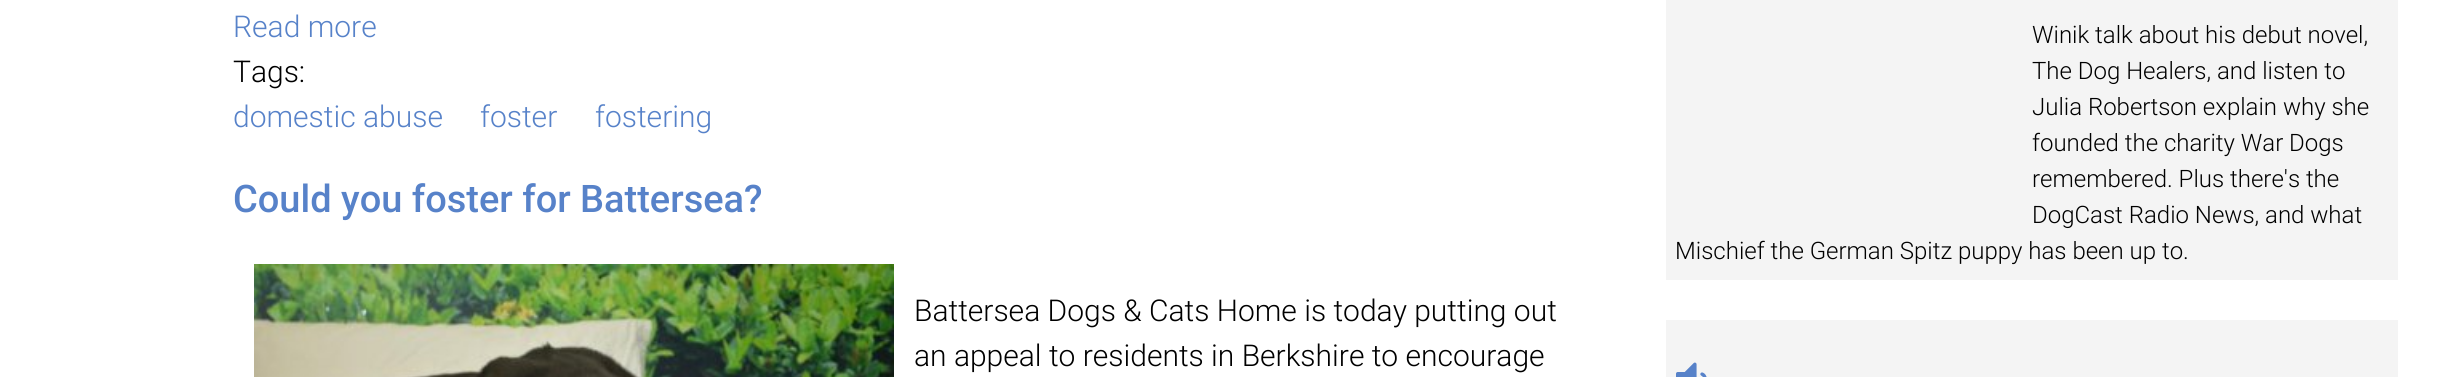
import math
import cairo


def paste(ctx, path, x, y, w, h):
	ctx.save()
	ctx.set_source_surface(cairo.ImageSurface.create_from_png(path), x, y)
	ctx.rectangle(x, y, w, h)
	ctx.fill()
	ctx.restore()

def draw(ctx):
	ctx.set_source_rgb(1, 1, 1)
	ctx.paint()
	ctx.select_font_face('Roboto Light')
	ctx.set_font_size(30)
	ctx.set_source_rgb(0.341, 0.51, 0.788)
	ctx.move_to(233, 37)
	ctx.show_text('Read more')
	ctx.set_source_rgb(0, 0, 0)
	ctx.move_to(233, 82)
	ctx.show_text('Tags:')
	ctx.set_source_rgb(0.341, 0.51, 0.788)
	for x, y, s in [
		(233, 127, 'domestic abuse'),
		(480, 127, 'foster'),
		(595, 127, 'fostering'),
	]:
		ctx.move_to(x, y)
		ctx.show_text(s)
	ctx.select_font_face('Roboto Medium')
	ctx.set_font_size(38)
	ctx.move_to(233, 212)
	ctx.show_text('Could you foster for Battersea?')
	paste(ctx, 'media/1.png', 254, 264, 640, 113)
	ctx.select_font_face('Roboto Light')
	ctx.set_font_size(30)
	ctx.set_source_rgb(0, 0, 0)
	ctx.move_to(914, 321)
	ctx.show_text('Battersea Dogs & Cats Home is today putting out')
	ctx.move_to(914, 366)
	ctx.show_text('an appeal to residents in Berkshire to encourage')
	ctx.set_source_rgb(0.957, 0.957, 0.957)
	ctx.rectangle(1666, 0, 732, 280)
	ctx.fill()
	ctx.set_font_size(24)
	ctx.set_source_rgb(0, 0, 0)
	for x, y, s in [
		(2032, 43, 'Winik talk about his debut novel,'),
		(2032, 79, 'The Dog Healers, and listen to'),
		(2032, 115, 'Julia Robertson explain why she'),
		(2032, 151, 'founded the charity War Dogs'),
		(2032, 187, 'remembered. Plus there\'s the'),
		(2032, 223, 'DogCast Radio News, and what'),
		(1675, 259, 'Mischief the German Spitz puppy has been up to.'),
	]:
		ctx.move_to(x, y)
		ctx.show_text(s)
	ctx.set_source_rgb(0.957, 0.957, 0.957)
	ctx.rectangle(1666, 320, 732, 57)
	ctx.fill()
	paste(ctx, 'media/2.png', 1676, 362, 31, 15)


surface = cairo.ImageSurface(cairo.FORMAT_RGB24, 2437, 377)
ctx = cairo.Context(surface)
options = cairo.FontOptions()
options.set_hint_metrics(cairo.HINT_METRICS_OFF)
options.set_hint_style(cairo.HINT_STYLE_NONE)
ctx.set_font_options(options)
ctx.set_miter_limit(4)
draw(ctx)
surface.write_to_png('image.png')
